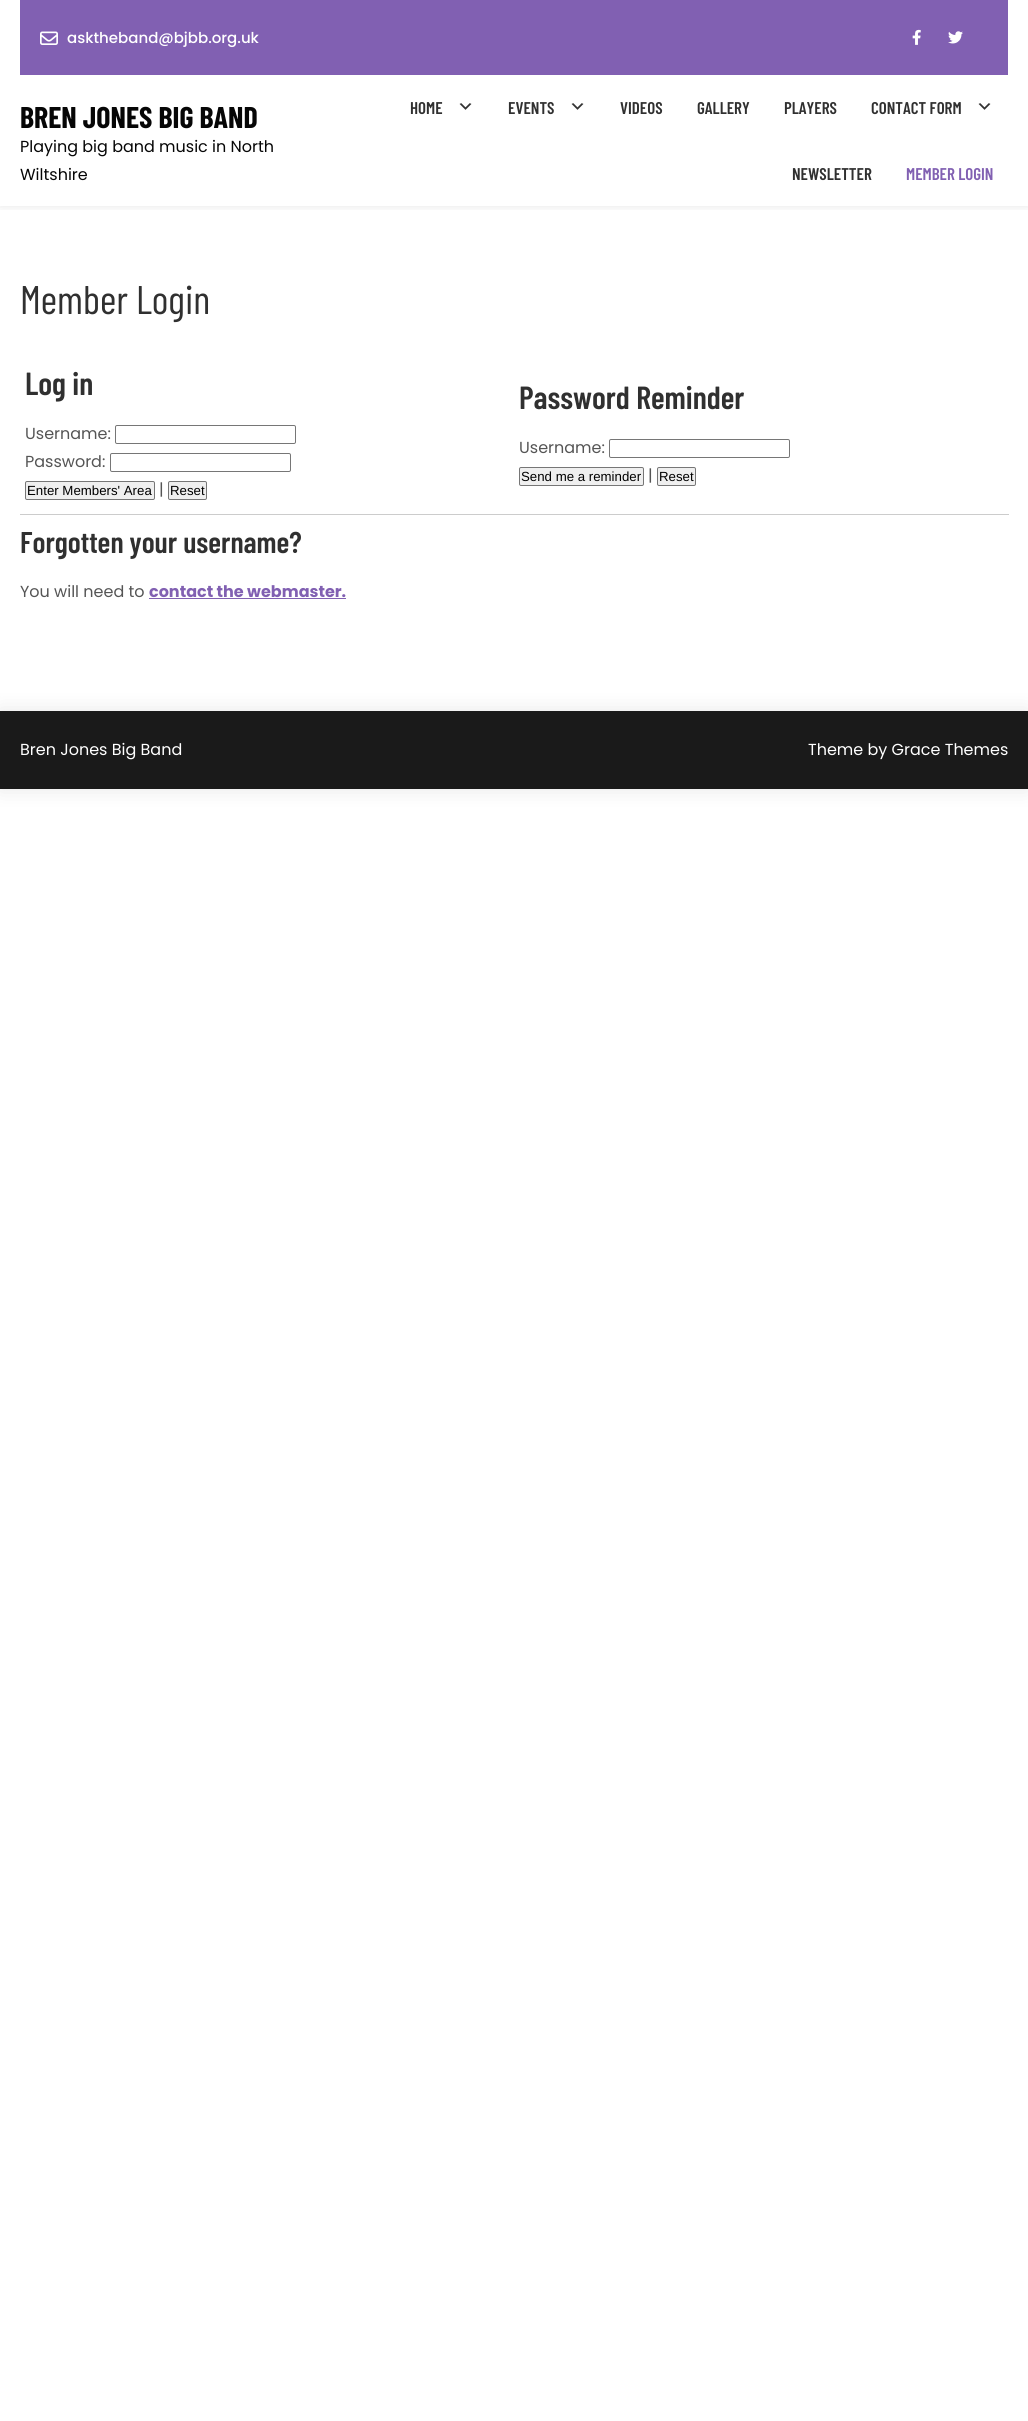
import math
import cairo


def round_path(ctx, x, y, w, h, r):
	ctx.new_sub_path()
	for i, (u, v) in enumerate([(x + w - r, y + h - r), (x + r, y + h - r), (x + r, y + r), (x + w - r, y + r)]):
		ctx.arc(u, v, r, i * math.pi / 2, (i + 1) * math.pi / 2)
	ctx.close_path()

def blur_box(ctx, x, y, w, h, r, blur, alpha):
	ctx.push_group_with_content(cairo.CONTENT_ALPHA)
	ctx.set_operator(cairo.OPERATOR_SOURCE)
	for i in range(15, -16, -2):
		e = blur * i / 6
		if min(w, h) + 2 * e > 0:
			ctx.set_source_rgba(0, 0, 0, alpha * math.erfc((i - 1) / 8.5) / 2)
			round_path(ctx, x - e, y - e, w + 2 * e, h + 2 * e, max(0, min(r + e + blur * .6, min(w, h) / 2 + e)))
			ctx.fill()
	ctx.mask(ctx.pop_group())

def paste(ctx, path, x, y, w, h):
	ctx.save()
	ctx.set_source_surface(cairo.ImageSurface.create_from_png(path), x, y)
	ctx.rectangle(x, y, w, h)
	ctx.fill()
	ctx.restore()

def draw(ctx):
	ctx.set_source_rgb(1, 1, 1)
	ctx.paint()
	ctx.save()
	ctx.rectangle(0, 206, 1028, 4)
	ctx.clip()
	ctx.set_source_rgb(0, 0, 0)
	blur_box(ctx, 0, 0, 1028, 206, 0, 5, 0.1)
	ctx.restore()
	ctx.set_source_rgb(0.506, 0.376, 0.698)
	ctx.rectangle(20, 0, 988, 75)
	ctx.fill()
	paste(ctx, 'media/1.png', 40, 31, 18, 14)
	ctx.select_font_face('Poppins Medium')
	ctx.set_font_size(15)
	ctx.set_source_rgb(1, 1, 1)
	ctx.move_to(67, 43)
	ctx.show_text('asktheband@bjbb.org.uk')
	paste(ctx, 'media/2.png', 912, 29, 9, 16)
	paste(ctx, 'media/3.png', 948, 31, 15, 13)
	ctx.select_font_face('Barlow Condensed', cairo.FONT_SLANT_NORMAL, cairo.FONT_WEIGHT_BOLD)
	ctx.set_font_size(30)
	ctx.set_source_rgb(0.024, 0.024, 0.024)
	ctx.move_to(20, 128)
	ctx.show_text('BREN JONES BIG BAND')
	ctx.select_font_face('Poppins')
	ctx.set_font_size(16)
	ctx.move_to(20, 152)
	ctx.show_text('Playing big band music in North')
	ctx.move_to(20, 180)
	ctx.show_text('Wiltshire')
	ctx.select_font_face('Barlow Condensed SemiBold')
	ctx.set_font_size(17)
	ctx.set_source_rgb(0.188, 0.188, 0.188)
	ctx.move_to(410, 114)
	ctx.show_text('HOME')
	paste(ctx, 'media/4.png', 459, 103, 13, 7)
	ctx.move_to(508, 114)
	ctx.show_text('EVENTS')
	paste(ctx, 'media/4.png', 571, 103, 13, 7)
	for x, y, s in [
		(620, 114, 'VIDEOS'),
		(697, 114, 'GALLERY'),
		(784, 114, 'PLAYERS'),
		(871, 114, 'CONTACT FORM'),
	]:
		ctx.move_to(x, y)
		ctx.show_text(s)
	paste(ctx, 'media/4.png', 978, 103, 13, 7)
	ctx.move_to(792, 180)
	ctx.show_text('NEWSLETTER')
	ctx.set_source_rgb(0.506, 0.376, 0.698)
	ctx.move_to(906, 180)
	ctx.show_text('MEMBER LOGIN')
	ctx.select_font_face('Barlow Condensed')
	ctx.set_font_size(40)
	ctx.set_source_rgb(0.188, 0.188, 0.188)
	ctx.move_to(20, 314)
	ctx.show_text('Member Login')
	ctx.select_font_face('Barlow Condensed SemiBold')
	ctx.set_font_size(32)
	ctx.move_to(25, 395)
	ctx.show_text('Log in')
	ctx.select_font_face('Poppins')
	ctx.set_font_size(16)
	ctx.set_source_rgb(0.333, 0.333, 0.333)
	ctx.move_to(25, 439)
	ctx.show_text('Username:')
	round_path(ctx, 115.5, 425.5, 180, 18, 1.5)
	ctx.set_source_rgb(0.463, 0.463, 0.463)
	ctx.set_line_width(1)
	ctx.stroke()
	ctx.set_source_rgb(0.333, 0.333, 0.333)
	ctx.move_to(25, 467)
	ctx.show_text('Password:')
	round_path(ctx, 110.5, 453.5, 180, 18, 1.5)
	ctx.set_source_rgb(0.463, 0.463, 0.463)
	ctx.stroke()
	ctx.set_source_rgb(0.937, 0.937, 0.937)
	round_path(ctx, 25.5, 481.5, 129, 18, 1.5)
	ctx.fill_preserve()
	ctx.set_source_rgb(0.463, 0.463, 0.463)
	ctx.stroke()
	ctx.select_font_face('Liberation Sans')
	ctx.set_font_size(13.25)
	ctx.set_source_rgb(0, 0, 0)
	ctx.move_to(27, 495)
	ctx.show_text('Enter Members\' Area')
	ctx.select_font_face('Poppins')
	ctx.set_font_size(16)
	ctx.set_source_rgb(0.333, 0.333, 0.333)
	ctx.move_to(159, 495)
	ctx.show_text('|')
	ctx.set_source_rgb(0.937, 0.937, 0.937)
	round_path(ctx, 168.5, 481.5, 38, 18, 1.5)
	ctx.fill_preserve()
	ctx.set_source_rgb(0.463, 0.463, 0.463)
	ctx.stroke()
	ctx.select_font_face('Liberation Sans')
	ctx.set_font_size(13.25)
	ctx.set_source_rgb(0, 0, 0)
	ctx.move_to(170, 495)
	ctx.show_text('Reset')
	ctx.set_source_rgb(0.8, 0.8, 0.8)
	ctx.rectangle(20, 514, 989, 1)
	ctx.fill()
	ctx.select_font_face('Barlow Condensed SemiBold')
	ctx.set_font_size(32)
	ctx.set_source_rgb(0.188, 0.188, 0.188)
	ctx.move_to(519, 409)
	ctx.show_text('Password Reminder')
	ctx.select_font_face('Poppins')
	ctx.set_font_size(16)
	ctx.set_source_rgb(0.333, 0.333, 0.333)
	ctx.move_to(519, 453)
	ctx.show_text('Username:')
	round_path(ctx, 609.5, 439.5, 180, 18, 1.5)
	ctx.set_source_rgb(0.463, 0.463, 0.463)
	ctx.stroke()
	ctx.set_source_rgb(0.937, 0.937, 0.937)
	round_path(ctx, 519.5, 467.5, 124, 18, 1.5)
	ctx.fill_preserve()
	ctx.set_source_rgb(0.463, 0.463, 0.463)
	ctx.stroke()
	ctx.select_font_face('Liberation Sans')
	ctx.set_font_size(13.25)
	ctx.set_source_rgb(0, 0, 0)
	ctx.move_to(521, 481)
	ctx.show_text('Send me a reminder')
	ctx.select_font_face('Poppins')
	ctx.set_font_size(16)
	ctx.set_source_rgb(0.333, 0.333, 0.333)
	ctx.move_to(648, 481)
	ctx.show_text('|')
	ctx.set_source_rgb(0.937, 0.937, 0.937)
	round_path(ctx, 657.5, 467.5, 38, 18, 1.5)
	ctx.fill_preserve()
	ctx.set_source_rgb(0.463, 0.463, 0.463)
	ctx.stroke()
	ctx.select_font_face('Liberation Sans')
	ctx.set_font_size(13.25)
	ctx.set_source_rgb(0, 0, 0)
	ctx.move_to(659, 481)
	ctx.show_text('Reset')
	ctx.select_font_face('Barlow Condensed SemiBold')
	ctx.set_font_size(30)
	ctx.set_source_rgb(0.188, 0.188, 0.188)
	ctx.move_to(20, 553)
	ctx.show_text('Forgotten your username?')
	ctx.select_font_face('Poppins')
	ctx.set_font_size(16)
	ctx.set_source_rgb(0.333, 0.333, 0.333)
	ctx.move_to(20, 597)
	ctx.show_text('You will need to')
	ctx.select_font_face('Poppins', cairo.FONT_SLANT_NORMAL, cairo.FONT_WEIGHT_BOLD)
	ctx.set_source_rgb(0.506, 0.376, 0.698)
	ctx.move_to(149, 597)
	ctx.show_text('contact the webmaster.')
	ctx.rectangle(149, 598, 197, 1)
	ctx.fill()
	ctx.set_source_rgb(0, 0, 0)
	blur_box(ctx, 0, 711, 1028, 78, 0, 10, 0.1)
	ctx.set_source_rgb(0.102, 0.102, 0.102)
	ctx.rectangle(0, 711, 1028, 78)
	ctx.fill()
	ctx.select_font_face('Poppins')
	ctx.set_source_rgb(1, 1, 1)
	ctx.move_to(20, 755)
	ctx.show_text('Bren Jones Big Band')
	ctx.move_to(808, 755)
	ctx.show_text('Theme by Grace Themes')


surface = cairo.ImageSurface(cairo.FORMAT_RGB24, 1028, 2421)
ctx = cairo.Context(surface)
options = cairo.FontOptions()
options.set_hint_metrics(cairo.HINT_METRICS_OFF)
options.set_hint_style(cairo.HINT_STYLE_NONE)
ctx.set_font_options(options)
ctx.set_miter_limit(4)
draw(ctx)
surface.write_to_png('image.png')
